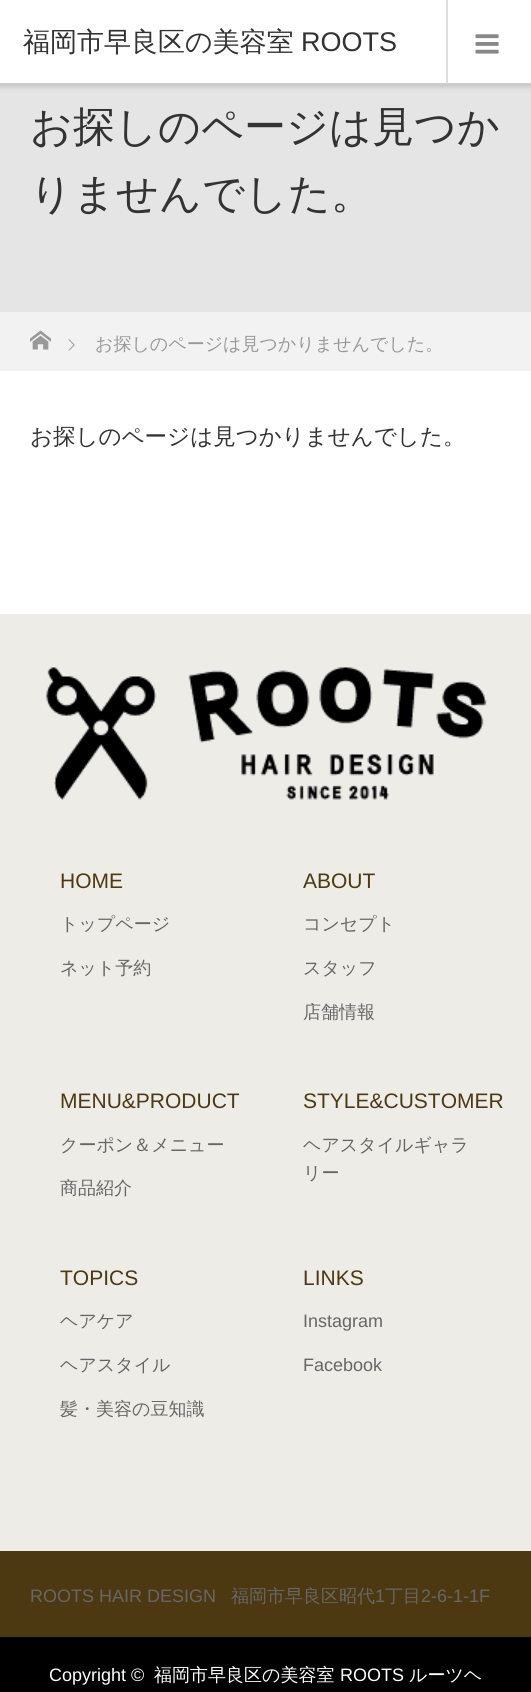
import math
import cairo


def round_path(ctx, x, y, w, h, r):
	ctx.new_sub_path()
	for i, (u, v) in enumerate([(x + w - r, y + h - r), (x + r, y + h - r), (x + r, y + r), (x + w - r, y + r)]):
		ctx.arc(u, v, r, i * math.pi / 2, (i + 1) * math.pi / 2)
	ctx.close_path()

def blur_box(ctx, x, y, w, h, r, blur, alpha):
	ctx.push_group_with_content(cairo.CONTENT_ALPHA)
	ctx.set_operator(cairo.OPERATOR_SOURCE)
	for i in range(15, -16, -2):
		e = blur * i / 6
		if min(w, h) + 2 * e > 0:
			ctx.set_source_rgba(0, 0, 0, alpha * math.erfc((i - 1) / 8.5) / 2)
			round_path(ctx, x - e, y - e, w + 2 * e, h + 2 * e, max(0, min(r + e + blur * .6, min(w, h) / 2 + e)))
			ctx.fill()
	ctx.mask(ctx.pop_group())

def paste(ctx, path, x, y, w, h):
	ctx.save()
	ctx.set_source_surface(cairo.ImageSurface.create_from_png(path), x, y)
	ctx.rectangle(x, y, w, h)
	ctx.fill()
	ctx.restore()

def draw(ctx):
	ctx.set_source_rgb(1, 1, 1)
	ctx.paint()
	ctx.set_source_rgb(0.898, 0.898, 0.898)
	ctx.rectangle(0, 85, 531, 227)
	ctx.fill()
	ctx.set_source_rgb(0, 0, 0)
	blur_box(ctx, 0, 2, 531, 84, 0, 3, 0.2)
	ctx.set_source_rgb(1, 1, 1)
	ctx.rectangle(0, 0, 531, 83)
	ctx.fill()
	ctx.set_source_rgb(0.8, 0.8, 0.8)
	ctx.rectangle(0, 83, 531, 2)
	ctx.fill()
	ctx.select_font_face('WenQuanYi Zen Hei Medium')
	ctx.set_font_size(27)
	ctx.set_source_rgb(0.2, 0.2, 0.2)
	ctx.move_to(23, 51)
	ctx.show_text('福岡市早良区の美容室')
	ctx.select_font_face('Liberation Sans')
	ctx.move_to(301, 51)
	ctx.show_text('ROOTS')
	ctx.set_source_rgb(0.867, 0.867, 0.867)
	ctx.rectangle(446, 0, 2, 84)
	ctx.fill()
	paste(ctx, 'media/1.png', 475, 34, 24, 20)
	ctx.select_font_face('WenQuanYi Zen Hei Medium')
	ctx.set_font_size(42)
	ctx.set_source_rgb(0.2, 0.2, 0.2)
	ctx.move_to(30, 141)
	ctx.show_text('お探しのページは見つか')
	ctx.move_to(30, 208)
	ctx.show_text('りませんでした。')
	ctx.set_source_rgb(0.949, 0.949, 0.949)
	ctx.rectangle(0, 312, 531, 59)
	ctx.fill()
	paste(ctx, 'media/2.png', 30, 330, 21, 20)
	paste(ctx, 'media/3.png', 68, 339, 7, 12)
	ctx.set_font_size(18)
	ctx.set_source_rgb(0.6, 0.6, 0.6)
	ctx.move_to(95, 350)
	ctx.show_text('お探しのページは見つかりませんでした。')
	ctx.set_font_size(22.5)
	ctx.set_source_rgb(0.2, 0.2, 0.2)
	ctx.move_to(30, 444)
	ctx.show_text('お探しのページは見つかりませんでした。')
	ctx.set_source_rgb(0.929, 0.922, 0.906)
	ctx.rectangle(0, 614, 531, 937)
	ctx.fill()
	paste(ctx, 'media/4.png', 46, 667, 441, 133)
	ctx.select_font_face('Liberation Sans')
	ctx.set_font_size(21)
	ctx.set_source_rgb(0.302, 0.224, 0.067)
	ctx.move_to(60, 888)
	ctx.show_text('HOME')
	ctx.select_font_face('WenQuanYi Zen Hei Medium')
	ctx.set_font_size(18)
	ctx.set_source_rgb(0.4, 0.4, 0.4)
	ctx.move_to(60, 930)
	ctx.show_text('トップページ')
	ctx.move_to(60, 974)
	ctx.show_text('ネット予約')
	ctx.select_font_face('Liberation Sans')
	ctx.set_font_size(21)
	ctx.set_source_rgb(0.302, 0.224, 0.067)
	ctx.move_to(303, 888)
	ctx.show_text('ABOUT')
	ctx.select_font_face('WenQuanYi Zen Hei Medium')
	ctx.set_font_size(18)
	ctx.set_source_rgb(0.4, 0.4, 0.4)
	for x, y, s in [
		(303, 930, 'コンセプト'),
		(303, 974, 'スタッフ'),
		(303, 1018, '店舗情報'),
	]:
		ctx.move_to(x, y)
		ctx.show_text(s)
	ctx.select_font_face('Liberation Sans')
	ctx.set_font_size(21)
	ctx.set_source_rgb(0.302, 0.224, 0.067)
	ctx.move_to(60, 1108)
	ctx.show_text('MENU&PRODUCT')
	ctx.select_font_face('WenQuanYi Zen Hei Medium')
	ctx.set_font_size(18)
	ctx.set_source_rgb(0.4, 0.4, 0.4)
	ctx.move_to(60, 1151)
	ctx.show_text('クーポン＆メニュー')
	ctx.move_to(60, 1194)
	ctx.show_text('商品紹介')
	ctx.select_font_face('Liberation Sans')
	ctx.set_font_size(21)
	ctx.set_source_rgb(0.302, 0.224, 0.067)
	ctx.move_to(303, 1108)
	ctx.show_text('STYLE&CUSTOMER')
	ctx.select_font_face('WenQuanYi Zen Hei Medium')
	ctx.set_font_size(18)
	ctx.set_source_rgb(0.4, 0.4, 0.4)
	ctx.move_to(303, 1151)
	ctx.show_text('ヘアスタイルギャラ')
	ctx.move_to(303, 1179)
	ctx.show_text('リー')
	ctx.select_font_face('Liberation Sans')
	ctx.set_font_size(21)
	ctx.set_source_rgb(0.302, 0.224, 0.067)
	ctx.move_to(60, 1285)
	ctx.show_text('TOPICS')
	ctx.select_font_face('WenQuanYi Zen Hei Medium')
	ctx.set_font_size(18)
	ctx.set_source_rgb(0.4, 0.4, 0.4)
	for x, y, s in [
		(60, 1327, 'ヘアケア'),
		(60, 1371, 'ヘアスタイル'),
		(60, 1415, '髪・美容の豆知識'),
	]:
		ctx.move_to(x, y)
		ctx.show_text(s)
	ctx.select_font_face('Liberation Sans')
	ctx.set_font_size(21)
	ctx.set_source_rgb(0.302, 0.224, 0.067)
	ctx.move_to(303, 1285)
	ctx.show_text('LINKS')
	ctx.set_font_size(18)
	ctx.set_source_rgb(0.4, 0.4, 0.4)
	ctx.move_to(303, 1327)
	ctx.show_text('Instagram')
	ctx.move_to(303, 1371)
	ctx.show_text('Facebook')
	ctx.set_source_rgb(0.302, 0.224, 0.067)
	ctx.rectangle(0, 1551, 531, 86)
	ctx.fill()
	ctx.set_source_rgb(0.4, 0.4, 0.4)
	ctx.move_to(30, 1602)
	ctx.show_text('ROOTS HAIR DESIGN')
	ctx.select_font_face('WenQuanYi Zen Hei Medium')
	ctx.move_to(231, 1602)
	ctx.show_text('福岡市早良区昭代')
	ctx.select_font_face('Liberation Sans')
	ctx.move_to(375, 1602)
	ctx.show_text('1')
	ctx.select_font_face('WenQuanYi Zen Hei Medium')
	ctx.move_to(385, 1602)
	ctx.show_text('丁目')
	ctx.select_font_face('Liberation Sans')
	ctx.move_to(421, 1602)
	ctx.show_text('2-6-1-1F')
	ctx.set_source_rgb(0, 0, 0)
	ctx.rectangle(0, 1637, 531, 55)
	ctx.fill()
	ctx.set_source_rgb(1, 1, 1)
	ctx.move_to(49, 1681)
	ctx.show_text('Copyright ©')
	ctx.select_font_face('WenQuanYi Zen Hei Medium')
	ctx.move_to(154, 1681)
	ctx.show_text('福岡市早良区の美容室')
	ctx.select_font_face('Liberation Sans')
	ctx.move_to(340, 1681)
	ctx.show_text('ROOTS')
	ctx.select_font_face('WenQuanYi Zen Hei Medium')
	ctx.move_to(409, 1681)
	ctx.show_text('ルーツヘ')


surface = cairo.ImageSurface(cairo.FORMAT_RGB24, 531, 1692)
ctx = cairo.Context(surface)
options = cairo.FontOptions()
options.set_hint_metrics(cairo.HINT_METRICS_OFF)
options.set_hint_style(cairo.HINT_STYLE_NONE)
ctx.set_font_options(options)
ctx.set_miter_limit(4)
draw(ctx)
surface.write_to_png('image.png')
